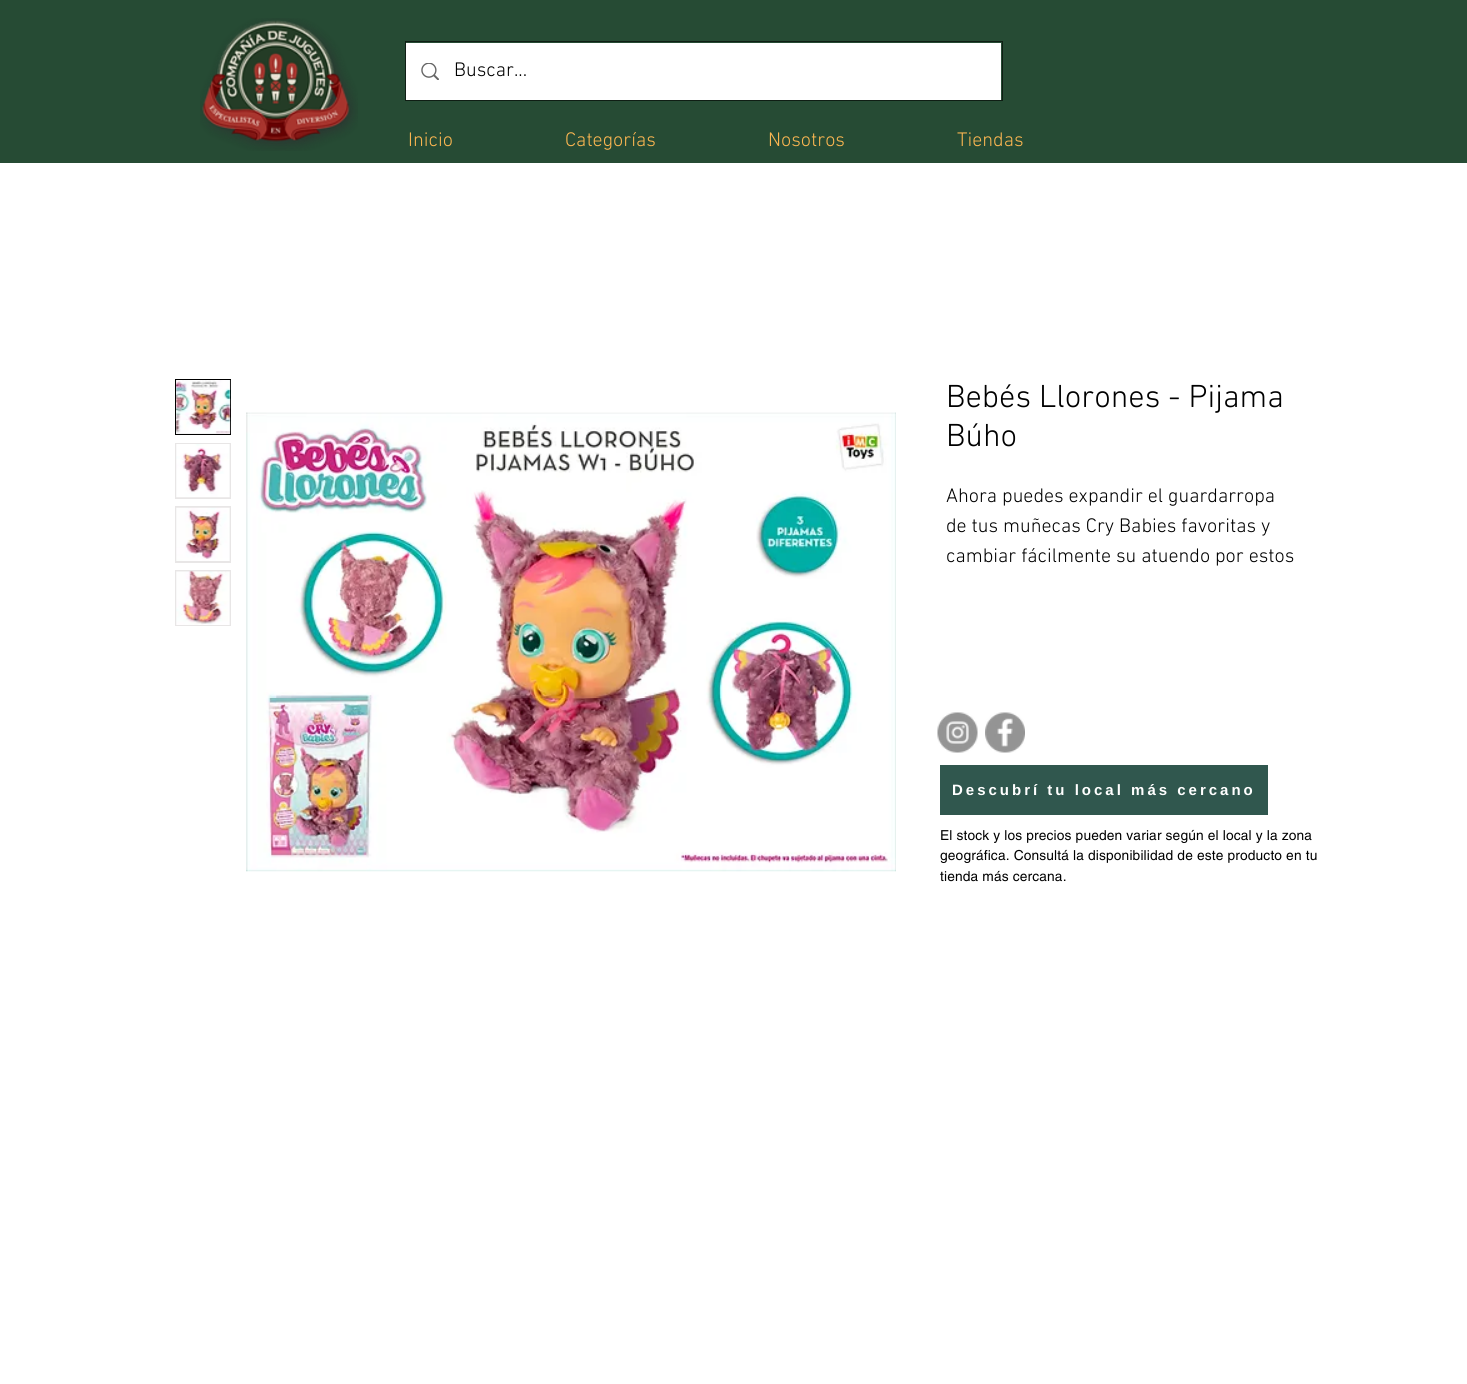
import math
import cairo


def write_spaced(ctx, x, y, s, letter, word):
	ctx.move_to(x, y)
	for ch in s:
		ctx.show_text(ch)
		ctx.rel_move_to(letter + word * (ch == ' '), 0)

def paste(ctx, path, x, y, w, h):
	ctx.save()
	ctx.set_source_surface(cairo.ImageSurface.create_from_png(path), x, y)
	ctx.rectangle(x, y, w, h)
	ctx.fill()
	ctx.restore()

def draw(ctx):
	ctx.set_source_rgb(1, 1, 1)
	ctx.paint()
	ctx.set_source_rgb(0.149, 0.294, 0.204)
	ctx.rectangle(0, 0, 1467, 163)
	ctx.fill()
	paste(ctx, 'media/1.png', 200, 18, 158, 133)
	ctx.rectangle(405.5, 41.5, 597, 59)
	ctx.set_source_rgb(0.059, 0.118, 0.082)
	ctx.set_line_width(1)
	ctx.stroke()
	ctx.set_source_rgb(1, 1, 1)
	ctx.rectangle(406, 43, 595, 57)
	ctx.fill()
	paste(ctx, 'media/2.png', 421, 63, 18, 17)
	ctx.select_font_face('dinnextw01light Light')
	ctx.set_font_size(20)
	ctx.set_source_rgb(0, 0, 0)
	ctx.move_to(454, 76)
	ctx.show_text('Buscar...')
	ctx.set_source_rgb(0.984, 0.714, 0.318)
	for x, y, s in [
		(408, 146, 'Inicio'),
		(565, 146, 'Categorías'),
		(768, 146, 'Nosotros'),
		(957, 146, 'Tiendas'),
	]:
		ctx.move_to(x, y)
		ctx.show_text(s)
	ctx.set_source_rgb(0.91, 0.902, 0.902)
	ctx.rectangle(175.5, 379.5, 55, 55)
	ctx.fill_preserve()
	ctx.set_source_rgb(0, 0, 0)
	ctx.stroke()
	paste(ctx, 'media/3.png', 176, 380, 55, 54)
	ctx.set_source_rgb(0.91, 0.902, 0.902)
	ctx.rectangle(175, 443, 56, 56)
	ctx.fill()
	paste(ctx, 'media/4.png', 176, 444, 54, 54)
	ctx.rectangle(175, 506, 56, 57)
	ctx.fill()
	paste(ctx, 'media/5.png', 176, 507, 54, 54)
	ctx.rectangle(175, 570, 56, 56)
	ctx.fill()
	paste(ctx, 'media/6.png', 176, 571, 54, 54)
	paste(ctx, 'media/7.png', 246, 412, 650, 460)
	ctx.set_font_size(32.5)
	ctx.set_source_rgb(0, 0, 0)
	ctx.move_to(946, 407)
	ctx.show_text('Bebés Llorones - Pijama')
	ctx.move_to(946, 446)
	ctx.show_text('Búho')
	ctx.set_font_size(20)
	for x, y, s in [
		(946, 502, 'Ahora puedes expandir el guardarropa'),
		(946, 532, 'de tus muñecas Cry Babies favoritas y'),
		(946, 562, 'cambiar fácilmente su atuendo por estos'),
	]:
		ctx.move_to(x, y)
		ctx.show_text(s)
	paste(ctx, 'media/8.png', 937, 712, 41, 41)
	paste(ctx, 'media/9.png', 985, 712, 40, 41)
	ctx.set_source_rgb(0.188, 0.341, 0.306)
	ctx.rectangle(940, 765, 328, 50)
	ctx.fill()
	ctx.select_font_face('Liberation Sans', cairo.FONT_SLANT_NORMAL, cairo.FONT_WEIGHT_BOLD)
	ctx.set_font_size(15)
	ctx.set_source_rgb(1, 1, 1)
	write_spaced(ctx, 952, 795, 'Descubrí tu local más cercano', 3, 0)
	ctx.select_font_face('helvetica')
	ctx.set_font_size(13.75)
	ctx.set_source_rgb(0, 0, 0)
	for x, y, s in [
		(940, 840, 'El stock y los precios pueden variar según el local y la zona'),
		(940, 860, 'geográfica. Consultá la disponibilidad de este producto en tu'),
		(940, 881, 'tienda más cercana.'),
	]:
		write_spaced(ctx, x, y, s, 0.15, 0)


surface = cairo.ImageSurface(cairo.FORMAT_RGB24, 1467, 1384)
ctx = cairo.Context(surface)
options = cairo.FontOptions()
options.set_hint_metrics(cairo.HINT_METRICS_OFF)
options.set_hint_style(cairo.HINT_STYLE_NONE)
ctx.set_font_options(options)
ctx.set_miter_limit(4)
draw(ctx)
surface.write_to_png('image.png')
